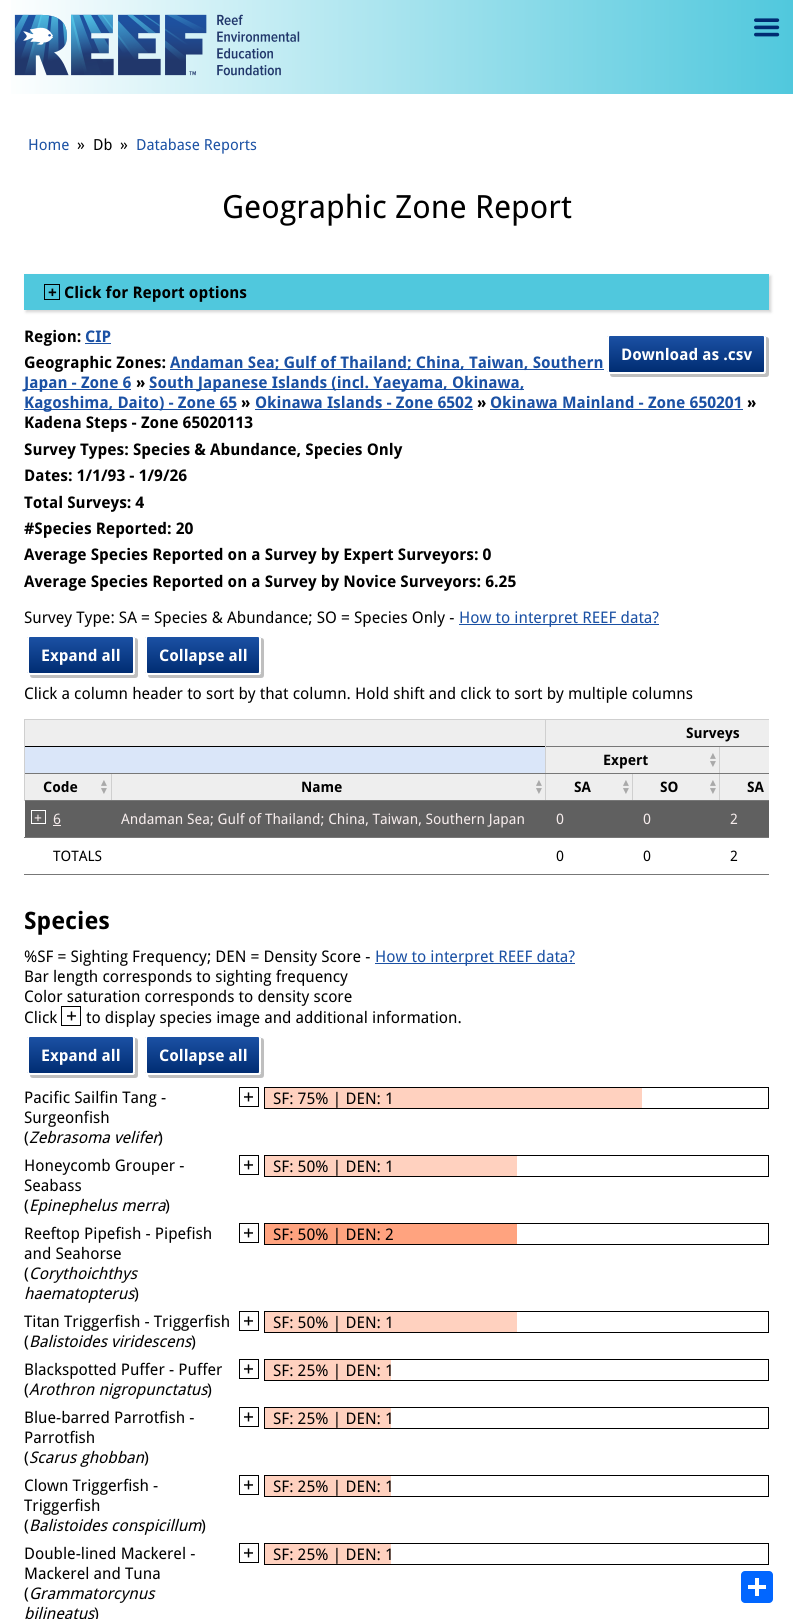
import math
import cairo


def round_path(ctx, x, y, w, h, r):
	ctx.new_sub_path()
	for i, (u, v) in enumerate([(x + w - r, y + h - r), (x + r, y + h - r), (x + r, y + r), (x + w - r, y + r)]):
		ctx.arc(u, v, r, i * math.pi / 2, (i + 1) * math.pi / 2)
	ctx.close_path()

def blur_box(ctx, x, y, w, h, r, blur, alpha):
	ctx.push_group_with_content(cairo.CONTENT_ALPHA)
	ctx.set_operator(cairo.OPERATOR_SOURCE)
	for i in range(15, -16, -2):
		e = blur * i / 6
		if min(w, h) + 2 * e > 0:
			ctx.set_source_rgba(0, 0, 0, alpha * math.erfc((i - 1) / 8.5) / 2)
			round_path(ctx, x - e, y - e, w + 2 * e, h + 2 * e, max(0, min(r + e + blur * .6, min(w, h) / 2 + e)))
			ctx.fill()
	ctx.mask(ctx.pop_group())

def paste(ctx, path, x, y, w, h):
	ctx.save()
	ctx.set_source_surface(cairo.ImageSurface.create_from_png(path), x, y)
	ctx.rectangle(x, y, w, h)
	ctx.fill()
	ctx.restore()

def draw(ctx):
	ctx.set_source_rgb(1, 1, 1)
	ctx.paint()
	gradient = cairo.LinearGradient(0, 47, 793, 47)
	gradient.add_color_stop_rgba(0, 1, 1, 1, 1)
	gradient.add_color_stop_rgba(1, 0.314, 0.784, 0.867, 1)
	ctx.set_source(gradient)
	ctx.rectangle(11, 0, 782, 94)
	ctx.fill()
	paste(ctx, 'media/1.png', 14, 14, 286, 62)
	paste(ctx, 'media/2.png', 754, 18, 26, 19)
	ctx.select_font_face('Droid Sans')
	ctx.set_font_size(15.25)
	ctx.set_source_rgb(0.106, 0.318, 0.643)
	ctx.move_to(28, 150)
	ctx.show_text('Home')
	ctx.set_font_size(16)
	ctx.set_source_rgb(0, 0, 0)
	ctx.move_to(77, 150)
	ctx.show_text('»')
	ctx.set_font_size(15.25)
	ctx.move_to(93, 150)
	ctx.show_text('Db')
	ctx.set_font_size(16)
	ctx.move_to(120, 150)
	ctx.show_text('»')
	ctx.set_font_size(15.25)
	ctx.set_source_rgb(0.106, 0.318, 0.643)
	ctx.move_to(136, 150)
	ctx.show_text('Database Reports')
	ctx.set_font_size(32)
	ctx.set_source_rgb(0, 0, 0)
	ctx.move_to(222, 218)
	ctx.show_text('Geographic Zone Report')
	ctx.set_source_rgb(0.827, 0.827, 0.827)
	blur_box(ctx, 26, 276, 745, 36, 0, 1.5, 1)
	ctx.set_source_rgb(0.314, 0.784, 0.867)
	ctx.rectangle(24, 274, 745, 36)
	ctx.fill()
	ctx.rectangle(44.5, 284.5, 15, 15)
	ctx.set_source_rgb(0, 0, 0)
	ctx.set_line_width(1)
	ctx.stroke()
	ctx.select_font_face('Droid Sans', cairo.FONT_SLANT_NORMAL, cairo.FONT_WEIGHT_BOLD)
	ctx.set_font_size(16)
	for x, y, s in [
		(48, 298, '+'),
		(64, 298, 'Click for Report options'),
		(24, 342, 'Region:'),
	]:
		ctx.move_to(x, y)
		ctx.show_text(s)
	ctx.set_source_rgb(0.106, 0.318, 0.643)
	ctx.move_to(85, 342)
	ctx.show_text('CIP')
	ctx.rectangle(85, 343, 26, 1)
	ctx.fill()
	ctx.set_source_rgb(0, 0, 0)
	ctx.move_to(24, 368)
	ctx.show_text('Geographic Zones:')
	ctx.set_source_rgb(0.106, 0.318, 0.643)
	ctx.rectangle(170, 369, 434, 1)
	ctx.fill()
	ctx.move_to(170, 368)
	ctx.show_text('Andaman Sea; Gulf of Thailand; China, Taiwan, Southern')
	ctx.rectangle(24, 389, 107, 1)
	ctx.fill()
	ctx.move_to(24, 388)
	ctx.show_text('Japan - Zone 6')
	ctx.set_source_rgb(0, 0, 0)
	ctx.move_to(136, 388)
	ctx.show_text('»')
	ctx.set_source_rgb(0.106, 0.318, 0.643)
	ctx.rectangle(149, 389, 375, 1)
	ctx.fill()
	ctx.move_to(149, 388)
	ctx.show_text('South Japanese Islands (incl. Yaeyama, Okinawa,')
	ctx.rectangle(24, 409, 213, 1)
	ctx.fill()
	ctx.move_to(24, 408)
	ctx.show_text('Kagoshima, Daito) - Zone 65')
	ctx.set_source_rgb(0, 0, 0)
	ctx.move_to(241, 408)
	ctx.show_text('»')
	ctx.set_source_rgb(0.106, 0.318, 0.643)
	ctx.move_to(255, 408)
	ctx.show_text('Okinawa Islands - Zone 6502')
	ctx.rectangle(255, 409, 218, 1)
	ctx.fill()
	ctx.set_source_rgb(0, 0, 0)
	ctx.move_to(477, 408)
	ctx.show_text('»')
	ctx.set_source_rgb(0.106, 0.318, 0.643)
	ctx.move_to(490, 408)
	ctx.show_text('Okinawa Mainland - Zone 650201')
	ctx.rectangle(490, 409, 253, 1)
	ctx.fill()
	ctx.set_source_rgb(0, 0, 0)
	for x, y, s in [
		(747, 408, '»'),
		(24, 428, 'Kadena Steps - Zone 65020113'),
		(24, 455, 'Survey Types: Species & Abundance, Species Only'),
		(24, 481, 'Dates: 1/1/93 - 1/9/26'),
		(24, 508, 'Total Surveys: 4'),
		(24, 534, '#Species Reported: 20'),
		(24, 560, 'Average Species Reported on a Survey by Expert Surveyors: 0'),
		(24, 587, 'Average Species Reported on a Survey by Novice Surveyors: 6.25'),
	]:
		ctx.move_to(x, y)
		ctx.show_text(s)
	ctx.set_source_rgb(0.749, 0.749, 0.749)
	ctx.new_path()
	ctx.move_to(610, 374)
	ctx.curve_to(610, 376, 611, 377, 613, 377)
	ctx.line_to(766, 377)
	ctx.curve_to(768, 377, 769, 376, 769, 374)
	ctx.line_to(769, 340)
	ctx.curve_to(769, 338, 768, 337, 766, 337)
	ctx.line_to(766, 371)
	ctx.curve_to(766, 373, 765, 374, 763, 374)
	ctx.close_path()
	ctx.fill()
	ctx.save()
	round_path(ctx, 607, 334, 159, 40, 3)
	ctx.clip()
	gradient = cairo.LinearGradient(687, 336, 687, 372)
	gradient.add_color_stop_rgba(0, 0.106, 0.318, 0.643, 1)
	gradient.add_color_stop_rgba(1, 0, 0.173, 0.447, 1)
	ctx.set_source(gradient)
	ctx.rectangle(607, 336, 159, 36)
	ctx.fill()
	ctx.restore()
	round_path(ctx, 608, 335, 157, 38, 2)
	ctx.set_source_rgb(1, 1, 1)
	ctx.set_line_width(2)
	ctx.stroke()
	ctx.move_to(621, 360)
	ctx.show_text('Download as .csv')
	ctx.select_font_face('Droid Sans')
	ctx.set_source_rgb(0, 0, 0)
	ctx.move_to(24, 623)
	ctx.show_text('Survey Type: SA = Species & Abundance; SO = Species Only -')
	ctx.set_source_rgb(0.106, 0.318, 0.643)
	ctx.rectangle(459, 624, 200, 1)
	ctx.fill()
	ctx.move_to(459, 623)
	ctx.show_text('How to interpret REEF data?')
	ctx.set_source_rgb(0.749, 0.749, 0.749)
	ctx.new_path()
	ctx.move_to(30, 675)
	ctx.curve_to(30, 677, 31, 678, 33, 678)
	ctx.line_to(135, 678)
	ctx.curve_to(137, 678, 138, 677, 138, 675)
	ctx.line_to(138, 641)
	ctx.curve_to(138, 639, 137, 638, 135, 638)
	ctx.line_to(135, 672)
	ctx.curve_to(135, 674, 134, 675, 132, 675)
	ctx.close_path()
	ctx.fill()
	ctx.save()
	round_path(ctx, 27, 635, 108, 40, 3)
	ctx.clip()
	gradient = cairo.LinearGradient(81, 637, 81, 673)
	gradient.add_color_stop_rgba(0, 0.106, 0.318, 0.643, 1)
	gradient.add_color_stop_rgba(1, 0, 0.173, 0.447, 1)
	ctx.set_source(gradient)
	ctx.rectangle(27, 637, 108, 36)
	ctx.fill()
	ctx.restore()
	round_path(ctx, 28, 636, 106, 38, 2)
	ctx.set_source_rgb(1, 1, 1)
	ctx.stroke()
	ctx.select_font_face('Droid Sans', cairo.FONT_SLANT_NORMAL, cairo.FONT_WEIGHT_BOLD)
	ctx.move_to(41, 661)
	ctx.show_text('Expand all')
	ctx.set_source_rgb(0.749, 0.749, 0.749)
	ctx.new_path()
	ctx.move_to(148, 675)
	ctx.curve_to(148, 677, 149, 678, 151, 678)
	ctx.line_to(261, 678)
	ctx.curve_to(263, 678, 264, 677, 264, 675)
	ctx.line_to(264, 641)
	ctx.curve_to(264, 639, 263, 638, 261, 638)
	ctx.line_to(261, 672)
	ctx.curve_to(261, 674, 260, 675, 258, 675)
	ctx.close_path()
	ctx.fill()
	ctx.save()
	round_path(ctx, 145, 635, 116, 40, 3)
	ctx.clip()
	gradient = cairo.LinearGradient(203, 637, 203, 673)
	gradient.add_color_stop_rgba(0, 0.106, 0.318, 0.643, 1)
	gradient.add_color_stop_rgba(1, 0, 0.173, 0.447, 1)
	ctx.set_source(gradient)
	ctx.rectangle(145, 637, 116, 36)
	ctx.fill()
	ctx.restore()
	round_path(ctx, 146, 636, 114, 38, 2)
	ctx.set_source_rgb(1, 1, 1)
	ctx.stroke()
	ctx.move_to(159, 661)
	ctx.show_text('Collapse all')
	ctx.select_font_face('Droid Sans')
	ctx.set_source_rgb(0, 0, 0)
	ctx.move_to(24, 699)
	ctx.show_text('Click a column header to sort by that column. Hold shift and click to sort by multiple columns')
	ctx.rectangle(24, 746, 521, 1)
	ctx.fill()
	ctx.set_source_rgb(0.933, 0.933, 0.933)
	ctx.rectangle(25, 720, 520, 26)
	ctx.fill()
	ctx.set_source_rgb(0.812, 0.812, 0.812)
	ctx.rectangle(545, 719, 224, 1)
	ctx.fill()
	ctx.set_source_rgb(0.467, 0.467, 0.467)
	ctx.rectangle(719, 800, 50, 1)
	ctx.fill()
	ctx.set_source_rgb(0.812, 0.812, 0.812)
	ctx.rectangle(719, 773, 1, 28)
	ctx.fill()
	ctx.set_source_rgb(0.467, 0.467, 0.467)
	ctx.rectangle(719, 773, 50, 1)
	ctx.fill()
	ctx.set_source_rgb(0.812, 0.812, 0.812)
	ctx.rectangle(719, 746, 1, 28)
	ctx.fill()
	ctx.set_source_rgb(0.467, 0.467, 0.467)
	ctx.rectangle(632, 800, 88, 1)
	ctx.fill()
	ctx.set_source_rgb(0.812, 0.812, 0.812)
	ctx.rectangle(632, 773, 1, 28)
	ctx.fill()
	ctx.set_source_rgb(0.467, 0.467, 0.467)
	ctx.rectangle(545, 800, 88, 1)
	ctx.fill()
	ctx.set_source_rgb(0.812, 0.812, 0.812)
	ctx.rectangle(545, 773, 1, 28)
	ctx.fill()
	ctx.set_source_rgb(0.467, 0.467, 0.467)
	ctx.rectangle(545, 773, 175, 1)
	ctx.fill()
	ctx.set_source_rgb(0.812, 0.812, 0.812)
	ctx.rectangle(545, 746, 1, 28)
	ctx.fill()
	ctx.set_source_rgb(0.467, 0.467, 0.467)
	ctx.rectangle(545, 746, 224, 1)
	ctx.fill()
	ctx.set_source_rgb(0.812, 0.812, 0.812)
	ctx.rectangle(545, 719, 1, 28)
	ctx.rectangle(24, 719, 522, 1)
	ctx.fill()
	ctx.set_source_rgb(0.467, 0.467, 0.467)
	ctx.rectangle(111, 800, 435, 1)
	ctx.fill()
	ctx.set_source_rgb(0.812, 0.812, 0.812)
	ctx.rectangle(111, 773, 1, 28)
	ctx.fill()
	ctx.set_source_rgb(0.467, 0.467, 0.467)
	ctx.rectangle(24, 800, 88, 1)
	ctx.fill()
	ctx.set_source_rgb(0.812, 0.812, 0.812)
	ctx.rectangle(24, 773, 1, 28)
	ctx.fill()
	ctx.set_source_rgb(0.467, 0.467, 0.467)
	ctx.rectangle(24, 773, 522, 1)
	ctx.fill()
	ctx.set_source_rgb(0.812, 0.812, 0.812)
	ctx.rectangle(24, 719, 1, 55)
	ctx.fill()
	ctx.set_source_rgb(0.933, 0.933, 0.933)
	ctx.rectangle(546, 720, 223, 26)
	ctx.fill()
	ctx.select_font_face('Droid Sans', cairo.FONT_SLANT_NORMAL, cairo.FONT_WEIGHT_BOLD)
	ctx.set_font_size(14.4)
	ctx.set_source_rgb(0, 0, 0)
	ctx.move_to(686, 738)
	ctx.show_text('Surveys')
	ctx.set_source_rgb(0.855, 0.902, 0.976)
	ctx.rectangle(25, 747, 520, 26)
	ctx.fill()
	ctx.set_source_rgb(0.933, 0.933, 0.933)
	ctx.rectangle(546, 747, 173, 26)
	ctx.fill()
	ctx.set_source_rgb(0, 0, 0)
	ctx.move_to(603, 765)
	ctx.show_text('Expert')
	ctx.select_font_face('DejaVu Sans', cairo.FONT_SLANT_NORMAL, cairo.FONT_WEIGHT_BOLD)
	ctx.set_font_size(11)
	ctx.set_source_rgb(0.663, 0.663, 0.663)
	ctx.move_to(710, 759)
	ctx.show_text('▴')
	ctx.move_to(710, 767)
	ctx.show_text('▾')
	ctx.set_source_rgb(0.933, 0.933, 0.933)
	ctx.rectangle(720, 747, 49, 26)
	ctx.fill()
	ctx.rectangle(25, 774, 86, 26)
	ctx.fill()
	ctx.select_font_face('Droid Sans', cairo.FONT_SLANT_NORMAL, cairo.FONT_WEIGHT_BOLD)
	ctx.set_font_size(14.4)
	ctx.set_source_rgb(0, 0, 0)
	ctx.move_to(43, 792)
	ctx.show_text('Code')
	ctx.select_font_face('DejaVu Sans', cairo.FONT_SLANT_NORMAL, cairo.FONT_WEIGHT_BOLD)
	ctx.set_font_size(11)
	ctx.set_source_rgb(0.663, 0.663, 0.663)
	ctx.move_to(101, 786)
	ctx.show_text('▴')
	ctx.move_to(101, 794)
	ctx.show_text('▾')
	ctx.set_source_rgb(0.933, 0.933, 0.933)
	ctx.rectangle(112, 774, 433, 26)
	ctx.fill()
	ctx.select_font_face('Droid Sans', cairo.FONT_SLANT_NORMAL, cairo.FONT_WEIGHT_BOLD)
	ctx.set_font_size(14.4)
	ctx.set_source_rgb(0, 0, 0)
	ctx.move_to(301, 792)
	ctx.show_text('Name')
	ctx.select_font_face('DejaVu Sans', cairo.FONT_SLANT_NORMAL, cairo.FONT_WEIGHT_BOLD)
	ctx.set_font_size(11)
	ctx.set_source_rgb(0.663, 0.663, 0.663)
	ctx.move_to(536, 786)
	ctx.show_text('▴')
	ctx.move_to(536, 794)
	ctx.show_text('▾')
	ctx.set_source_rgb(0.933, 0.933, 0.933)
	ctx.rectangle(546, 774, 86, 26)
	ctx.fill()
	ctx.select_font_face('Droid Sans', cairo.FONT_SLANT_NORMAL, cairo.FONT_WEIGHT_BOLD)
	ctx.set_font_size(14.4)
	ctx.set_source_rgb(0, 0, 0)
	ctx.move_to(574, 792)
	ctx.show_text('SA')
	ctx.select_font_face('DejaVu Sans', cairo.FONT_SLANT_NORMAL, cairo.FONT_WEIGHT_BOLD)
	ctx.set_font_size(11)
	ctx.set_source_rgb(0.663, 0.663, 0.663)
	ctx.move_to(623, 786)
	ctx.show_text('▴')
	ctx.move_to(623, 794)
	ctx.show_text('▾')
	ctx.set_source_rgb(0.933, 0.933, 0.933)
	ctx.rectangle(633, 774, 86, 26)
	ctx.fill()
	ctx.select_font_face('Droid Sans', cairo.FONT_SLANT_NORMAL, cairo.FONT_WEIGHT_BOLD)
	ctx.set_font_size(14.4)
	ctx.set_source_rgb(0, 0, 0)
	ctx.move_to(660, 792)
	ctx.show_text('SO')
	ctx.select_font_face('DejaVu Sans', cairo.FONT_SLANT_NORMAL, cairo.FONT_WEIGHT_BOLD)
	ctx.set_font_size(11)
	ctx.set_source_rgb(0.663, 0.663, 0.663)
	ctx.move_to(710, 786)
	ctx.show_text('▴')
	ctx.move_to(710, 794)
	ctx.show_text('▾')
	ctx.set_source_rgb(0.933, 0.933, 0.933)
	ctx.rectangle(720, 774, 49, 26)
	ctx.fill()
	ctx.select_font_face('Droid Sans', cairo.FONT_SLANT_NORMAL, cairo.FONT_WEIGHT_BOLD)
	ctx.set_font_size(14.4)
	ctx.set_source_rgb(0, 0, 0)
	ctx.move_to(747, 792)
	ctx.show_text('SA')
	ctx.set_source_rgb(0.376, 0.376, 0.376)
	ctx.rectangle(25, 801, 744, 36)
	ctx.fill()
	ctx.rectangle(31.5, 810.5, 14, 13)
	ctx.set_source_rgb(1, 1, 1)
	ctx.set_line_width(1)
	ctx.stroke()
	ctx.select_font_face('Droid Sans')
	ctx.set_source_rgb(0.961, 0.922, 0.922)
	ctx.move_to(34, 823)
	ctx.show_text('+')
	ctx.move_to(53, 824)
	ctx.show_text('6')
	ctx.rectangle(53, 825, 8, 1)
	ctx.fill()
	for x, y, s in [
		(121, 824, 'Andaman Sea; Gulf of Thailand; China, Taiwan, Southern Japan'),
		(556, 824, '0'),
		(643, 824, '0'),
	]:
		ctx.move_to(x, y)
		ctx.show_text(s)
	ctx.set_source_rgb(0.467, 0.467, 0.467)
	ctx.rectangle(24, 837, 745, 1)
	ctx.fill()
	ctx.set_source_rgb(0.961, 0.922, 0.922)
	ctx.move_to(730, 824)
	ctx.show_text('2')
	ctx.set_source_rgb(0, 0, 0)
	for x, y, s in [
		(53, 861, 'TOTALS'),
		(556, 861, '0'),
		(643, 861, '0'),
	]:
		ctx.move_to(x, y)
		ctx.show_text(s)
	ctx.set_source_rgb(0.467, 0.467, 0.467)
	ctx.rectangle(24, 874, 745, 1)
	ctx.fill()
	ctx.set_source_rgb(0, 0, 0)
	ctx.move_to(730, 861)
	ctx.show_text('2')
	ctx.select_font_face('Droid Sans', cairo.FONT_SLANT_NORMAL, cairo.FONT_WEIGHT_BOLD)
	ctx.set_font_size(24)
	ctx.move_to(24, 929)
	ctx.show_text('Species')
	ctx.select_font_face('Droid Sans')
	ctx.set_font_size(16)
	ctx.move_to(24, 962)
	ctx.show_text('%SF = Sighting Frequency; DEN = Density Score -')
	ctx.set_source_rgb(0.106, 0.318, 0.643)
	ctx.rectangle(375, 963, 200, 1)
	ctx.fill()
	ctx.move_to(375, 962)
	ctx.show_text('How to interpret REEF data?')
	ctx.set_source_rgb(0, 0, 0)
	for x, y, s in [
		(24, 982, 'Bar length corresponds to sighting frequency'),
		(24, 1002, 'Color saturation corresponds to density score'),
		(24, 1023, 'Click'),
	]:
		ctx.move_to(x, y)
		ctx.show_text(s)
	ctx.rectangle(61.5, 1006.5, 19, 19)
	ctx.stroke()
	ctx.set_font_size(20)
	ctx.move_to(66, 1023)
	ctx.show_text('+')
	ctx.set_font_size(16)
	ctx.move_to(86, 1023)
	ctx.show_text('to display species image and additional information.')
	ctx.set_source_rgb(0.749, 0.749, 0.749)
	ctx.new_path()
	ctx.move_to(30, 1075)
	ctx.curve_to(30, 1077, 31, 1078, 33, 1078)
	ctx.line_to(135, 1078)
	ctx.curve_to(137, 1078, 138, 1077, 138, 1075)
	ctx.line_to(138, 1041)
	ctx.curve_to(138, 1039, 137, 1038, 135, 1038)
	ctx.line_to(135, 1072)
	ctx.curve_to(135, 1074, 134, 1075, 132, 1075)
	ctx.close_path()
	ctx.fill()
	ctx.save()
	round_path(ctx, 27, 1035, 108, 40, 3)
	ctx.clip()
	gradient = cairo.LinearGradient(81, 1037, 81, 1073)
	gradient.add_color_stop_rgba(0, 0.106, 0.318, 0.643, 1)
	gradient.add_color_stop_rgba(1, 0, 0.173, 0.447, 1)
	ctx.set_source(gradient)
	ctx.rectangle(27, 1037, 108, 36)
	ctx.fill()
	ctx.restore()
	round_path(ctx, 28, 1036, 106, 38, 2)
	ctx.set_source_rgb(1, 1, 1)
	ctx.set_line_width(2)
	ctx.stroke()
	ctx.select_font_face('Droid Sans', cairo.FONT_SLANT_NORMAL, cairo.FONT_WEIGHT_BOLD)
	ctx.move_to(41, 1061)
	ctx.show_text('Expand all')
	ctx.set_source_rgb(0.749, 0.749, 0.749)
	ctx.new_path()
	ctx.move_to(148, 1075)
	ctx.curve_to(148, 1077, 149, 1078, 151, 1078)
	ctx.line_to(261, 1078)
	ctx.curve_to(263, 1078, 264, 1077, 264, 1075)
	ctx.line_to(264, 1041)
	ctx.curve_to(264, 1039, 263, 1038, 261, 1038)
	ctx.line_to(261, 1072)
	ctx.curve_to(261, 1074, 260, 1075, 258, 1075)
	ctx.close_path()
	ctx.fill()
	ctx.save()
	round_path(ctx, 145, 1035, 116, 40, 3)
	ctx.clip()
	gradient = cairo.LinearGradient(203, 1037, 203, 1073)
	gradient.add_color_stop_rgba(0, 0.106, 0.318, 0.643, 1)
	gradient.add_color_stop_rgba(1, 0, 0.173, 0.447, 1)
	ctx.set_source(gradient)
	ctx.rectangle(145, 1037, 116, 36)
	ctx.fill()
	ctx.restore()
	round_path(ctx, 146, 1036, 114, 38, 2)
	ctx.set_source_rgb(1, 1, 1)
	ctx.stroke()
	ctx.move_to(159, 1061)
	ctx.show_text('Collapse all')
	ctx.select_font_face('Droid Sans')
	ctx.set_source_rgb(0, 0, 0)
	ctx.move_to(24, 1103)
	ctx.show_text('Pacific Sailfin Tang -')
	ctx.rectangle(239.5, 1087.5, 19, 19)
	ctx.set_line_width(1)
	ctx.stroke()
	ctx.set_font_size(20)
	ctx.move_to(243, 1104)
	ctx.show_text('+')
	ctx.set_font_size(16)
	ctx.move_to(24, 1123)
	ctx.show_text('Surgeonfish')
	ctx.move_to(24, 1143)
	ctx.show_text('(')
	ctx.select_font_face('Droid Sans', cairo.FONT_SLANT_ITALIC)
	ctx.move_to(29, 1143)
	ctx.show_text('Zebrasoma velifer')
	ctx.select_font_face('Droid Sans')
	ctx.move_to(158, 1143)
	ctx.show_text(')')
	ctx.rectangle(264.5, 1087.5, 504, 21)
	ctx.stroke()
	ctx.set_source_rgb(1, 0.82, 0.749)
	ctx.rectangle(265, 1088, 377, 20)
	ctx.fill()
	ctx.set_source_rgb(0, 0, 0)
	ctx.move_to(273, 1104)
	ctx.show_text('SF: 75% | DEN: 1')
	ctx.move_to(24, 1171)
	ctx.show_text('Honeycomb Grouper -')
	ctx.rectangle(239.5, 1155.5, 19, 19)
	ctx.stroke()
	ctx.set_font_size(20)
	ctx.move_to(243, 1172)
	ctx.show_text('+')
	ctx.set_font_size(16)
	ctx.move_to(24, 1191)
	ctx.show_text('Seabass')
	ctx.move_to(24, 1211)
	ctx.show_text('(')
	ctx.select_font_face('Droid Sans', cairo.FONT_SLANT_ITALIC)
	ctx.move_to(29, 1211)
	ctx.show_text('Epinephelus merra')
	ctx.select_font_face('Droid Sans')
	ctx.move_to(165, 1211)
	ctx.show_text(')')
	ctx.rectangle(264.5, 1155.5, 504, 21)
	ctx.stroke()
	ctx.set_source_rgb(1, 0.82, 0.749)
	ctx.rectangle(265, 1156, 252, 20)
	ctx.fill()
	ctx.set_source_rgb(0, 0, 0)
	ctx.move_to(273, 1172)
	ctx.show_text('SF: 50% | DEN: 1')
	ctx.move_to(24, 1239)
	ctx.show_text('Reeftop Pipefish - Pipefish')
	ctx.rectangle(239.5, 1223.5, 19, 19)
	ctx.stroke()
	ctx.set_font_size(20)
	ctx.move_to(243, 1240)
	ctx.show_text('+')
	ctx.set_font_size(16)
	ctx.move_to(24, 1259)
	ctx.show_text('and Seahorse')
	ctx.move_to(24, 1279)
	ctx.show_text('(')
	ctx.select_font_face('Droid Sans', cairo.FONT_SLANT_ITALIC)
	ctx.move_to(29, 1279)
	ctx.show_text('Corythoichthys')
	ctx.move_to(24, 1299)
	ctx.show_text('haematopterus')
	ctx.select_font_face('Droid Sans')
	ctx.move_to(134, 1299)
	ctx.show_text(')')
	ctx.rectangle(264.5, 1223.5, 504, 21)
	ctx.stroke()
	ctx.set_source_rgb(1, 0.639, 0.498)
	ctx.rectangle(265, 1224, 252, 20)
	ctx.fill()
	ctx.set_source_rgb(0, 0, 0)
	ctx.move_to(273, 1240)
	ctx.show_text('SF: 50% | DEN: 2')
	ctx.move_to(24, 1327)
	ctx.show_text('Titan Triggerfish - Triggerfish')
	ctx.rectangle(239.5, 1311.5, 19, 19)
	ctx.stroke()
	ctx.set_font_size(20)
	ctx.move_to(243, 1328)
	ctx.show_text('+')
	ctx.set_font_size(16)
	ctx.move_to(24, 1347)
	ctx.show_text('(')
	ctx.select_font_face('Droid Sans', cairo.FONT_SLANT_ITALIC)
	ctx.move_to(29, 1347)
	ctx.show_text('Balistoides viridescens')
	ctx.select_font_face('Droid Sans')
	ctx.move_to(191, 1347)
	ctx.show_text(')')
	ctx.rectangle(264.5, 1311.5, 504, 21)
	ctx.stroke()
	ctx.set_source_rgb(1, 0.82, 0.749)
	ctx.rectangle(265, 1312, 252, 20)
	ctx.fill()
	ctx.set_source_rgb(0, 0, 0)
	ctx.move_to(273, 1328)
	ctx.show_text('SF: 50% | DEN: 1')
	ctx.move_to(24, 1375)
	ctx.show_text('Blackspotted Puffer - Puffer')
	ctx.rectangle(239.5, 1359.5, 19, 19)
	ctx.stroke()
	ctx.set_font_size(20)
	ctx.move_to(243, 1376)
	ctx.show_text('+')
	ctx.set_font_size(16)
	ctx.move_to(24, 1395)
	ctx.show_text('(')
	ctx.select_font_face('Droid Sans', cairo.FONT_SLANT_ITALIC)
	ctx.move_to(29, 1395)
	ctx.show_text('Arothron nigropunctatus')
	ctx.select_font_face('Droid Sans')
	ctx.move_to(207, 1395)
	ctx.show_text(')')
	ctx.rectangle(264.5, 1359.5, 504, 21)
	ctx.stroke()
	ctx.set_source_rgb(1, 0.82, 0.749)
	ctx.rectangle(265, 1360, 126, 20)
	ctx.fill()
	ctx.set_source_rgb(0, 0, 0)
	ctx.move_to(273, 1376)
	ctx.show_text('SF: 25% | DEN: 1')
	ctx.move_to(24, 1423)
	ctx.show_text('Blue-barred Parrotfish -')
	ctx.rectangle(239.5, 1407.5, 19, 19)
	ctx.stroke()
	ctx.set_font_size(20)
	ctx.move_to(243, 1424)
	ctx.show_text('+')
	ctx.set_font_size(16)
	ctx.move_to(24, 1443)
	ctx.show_text('Parrotfish')
	ctx.move_to(24, 1463)
	ctx.show_text('(')
	ctx.select_font_face('Droid Sans', cairo.FONT_SLANT_ITALIC)
	ctx.move_to(29, 1463)
	ctx.show_text('Scarus ghobban')
	ctx.select_font_face('Droid Sans')
	ctx.move_to(144, 1463)
	ctx.show_text(')')
	ctx.rectangle(264.5, 1407.5, 504, 21)
	ctx.stroke()
	ctx.set_source_rgb(1, 0.82, 0.749)
	ctx.rectangle(265, 1408, 126, 20)
	ctx.fill()
	ctx.set_source_rgb(0, 0, 0)
	ctx.move_to(273, 1424)
	ctx.show_text('SF: 25% | DEN: 1')
	ctx.move_to(24, 1491)
	ctx.show_text('Clown Triggerfish -')
	ctx.rectangle(239.5, 1475.5, 19, 19)
	ctx.stroke()
	ctx.set_font_size(20)
	ctx.move_to(243, 1492)
	ctx.show_text('+')
	ctx.set_font_size(16)
	ctx.move_to(24, 1511)
	ctx.show_text('Triggerfish')
	ctx.move_to(24, 1531)
	ctx.show_text('(')
	ctx.select_font_face('Droid Sans', cairo.FONT_SLANT_ITALIC)
	ctx.move_to(29, 1531)
	ctx.show_text('Balistoides conspicillum')
	ctx.select_font_face('Droid Sans')
	ctx.move_to(201, 1531)
	ctx.show_text(')')
	ctx.rectangle(264.5, 1475.5, 504, 21)
	ctx.stroke()
	ctx.set_source_rgb(1, 0.82, 0.749)
	ctx.rectangle(265, 1476, 126, 20)
	ctx.fill()
	ctx.set_source_rgb(0, 0, 0)
	ctx.move_to(273, 1492)
	ctx.show_text('SF: 25% | DEN: 1')
	ctx.move_to(24, 1559)
	ctx.show_text('Double-lined Mackerel -')
	ctx.rectangle(239.5, 1543.5, 19, 19)
	ctx.stroke()
	ctx.set_font_size(20)
	ctx.move_to(243, 1560)
	ctx.show_text('+')
	ctx.set_font_size(16)
	ctx.move_to(24, 1579)
	ctx.show_text('Mackerel and Tuna')
	ctx.move_to(24, 1599)
	ctx.show_text('(')
	ctx.select_font_face('Droid Sans', cairo.FONT_SLANT_ITALIC)
	ctx.move_to(29, 1599)
	ctx.show_text('Grammatorcynus')
	ctx.move_to(24, 1619)
	ctx.show_text('bilineatus')
	ctx.select_font_face('Droid Sans')
	ctx.move_to(94, 1619)
	ctx.show_text(')')
	ctx.rectangle(264.5, 1543.5, 504, 21)
	ctx.stroke()
	ctx.set_source_rgb(1, 0.82, 0.749)
	ctx.rectangle(265, 1544, 126, 20)
	ctx.fill()
	ctx.set_source_rgb(0, 0, 0)
	ctx.move_to(273, 1560)
	ctx.show_text('SF: 25% | DEN: 1')
	ctx.set_source_rgb(0.004, 0.4, 1)
	round_path(ctx, 741, 1571, 32, 32, 4)
	ctx.fill()
	ctx.set_source_rgb(1, 1, 1)
	ctx.rectangle(755, 1578, 4, 18)
	ctx.fill()
	ctx.rectangle(748, 1585, 18, 4)
	ctx.fill()


surface = cairo.ImageSurface(cairo.FORMAT_RGB24, 793, 1619)
ctx = cairo.Context(surface)
options = cairo.FontOptions()
options.set_hint_metrics(cairo.HINT_METRICS_OFF)
options.set_hint_style(cairo.HINT_STYLE_NONE)
ctx.set_font_options(options)
ctx.set_miter_limit(4)
draw(ctx)
surface.write_to_png('image.png')
